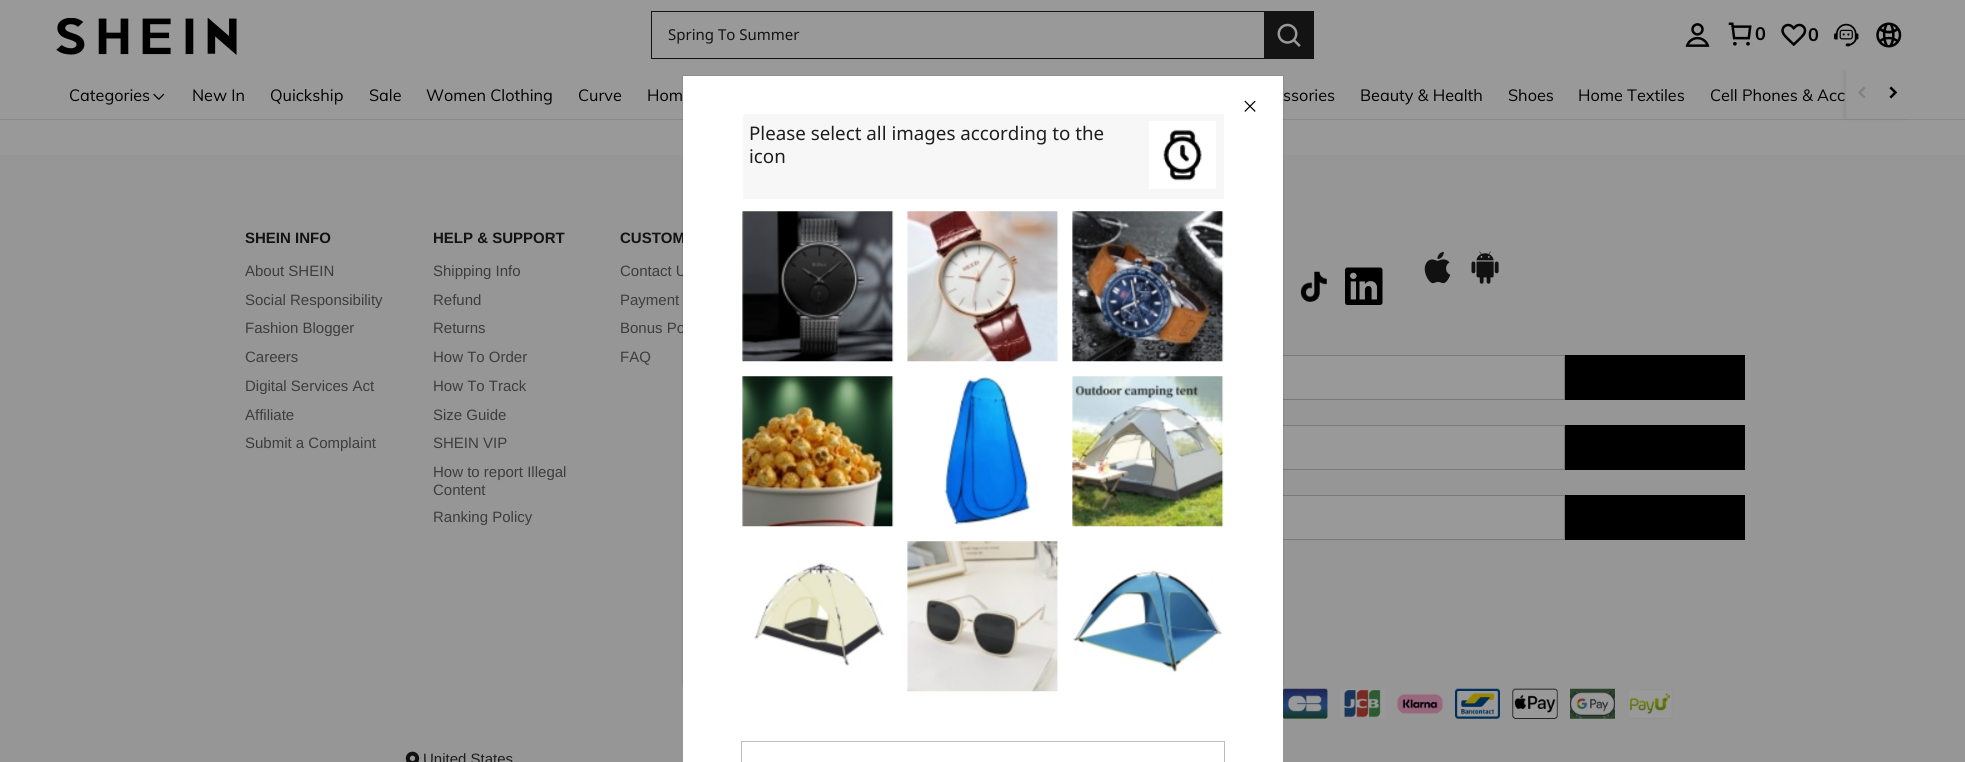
import math
import cairo


def round_path(ctx, x, y, w, h, r):
	ctx.new_sub_path()
	for i, (u, v) in enumerate([(x + w - r, y + h - r), (x + r, y + h - r), (x + r, y + r), (x + w - r, y + r)]):
		ctx.arc(u, v, r, i * math.pi / 2, (i + 1) * math.pi / 2)
	ctx.close_path()

def blur_box(ctx, x, y, w, h, r, blur, alpha):
	ctx.push_group_with_content(cairo.CONTENT_ALPHA)
	ctx.set_operator(cairo.OPERATOR_SOURCE)
	for i in range(15, -16, -2):
		e = blur * i / 6
		if min(w, h) + 2 * e > 0:
			ctx.set_source_rgba(0, 0, 0, alpha * math.erfc((i - 1) / 8.5) / 2)
			round_path(ctx, x - e, y - e, w + 2 * e, h + 2 * e, max(0, min(r + e + blur * .6, min(w, h) / 2 + e)))
			ctx.fill()
	ctx.mask(ctx.pop_group())

def paste(ctx, path, x, y, w, h):
	ctx.save()
	ctx.set_source_surface(cairo.ImageSurface.create_from_png(path), x, y)
	ctx.rectangle(x, y, w, h)
	ctx.fill()
	ctx.restore()

def draw(ctx):
	ctx.set_source_rgb(0.6, 0.6, 0.6)
	ctx.paint()
	ctx.set_source_rgb(0.537, 0.537, 0.537)
	ctx.rectangle(0, 119, 1965, 1)
	ctx.fill()
	ctx.set_source_rgb(0, 0, 0)
	blur_box(ctx, 1844, 70, 62, 49, 0, 2, 0.08)
	ctx.set_source_rgb(0.6, 0.6, 0.6)
	ctx.rectangle(1844, 68, 62, 2)
	ctx.fill()
	paste(ctx, 'media/1.png', 56, 18, 181, 37)
	ctx.set_source_rgb(0.078, 0.078, 0.078)
	ctx.rectangle(651, 11, 613, 1)
	ctx.rectangle(651, 58, 613, 1)
	ctx.rectangle(651, 11, 1, 48)
	ctx.fill()
	ctx.select_font_face('Noto Sans')
	ctx.set_font_size(15)
	ctx.move_to(668, 40)
	ctx.show_text('Spring To Summer')
	ctx.rectangle(1264, 11, 50, 48)
	ctx.fill()
	paste(ctx, 'media/2.png', 1277, 23, 24, 24)
	paste(ctx, 'media/3.png', 1685, 23, 25, 24)
	paste(ctx, 'media/4.png', 1728, 22, 24, 24)
	ctx.select_font_face('Muli', cairo.FONT_SLANT_NORMAL, cairo.FONT_WEIGHT_BOLD)
	ctx.set_font_size(18)
	ctx.set_source_rgb(0, 0, 0)
	ctx.move_to(1755, 40)
	ctx.show_text('0')
	paste(ctx, 'media/5.png', 1781, 23, 26, 24)
	ctx.move_to(1808, 41)
	ctx.show_text('0')
	paste(ctx, 'media/6.png', 1834, 23, 25, 24)
	paste(ctx, 'media/7.png', 1876, 22, 26, 26)
	ctx.select_font_face('Muli')
	ctx.set_font_size(16.25)
	ctx.move_to(69, 101)
	ctx.show_text('Categories')
	paste(ctx, 'media/8.png', 153, 93, 12, 7)
	for x, y, s in [
		(192, 101, 'New In'),
		(270, 101, 'Quickship'),
		(369, 101, 'Sale'),
		(426, 101, 'Women Clothing'),
		(578, 101, 'Curve'),
		(647, 101, 'Hom'),
		(1283, 101, 'ssories'),
		(1360, 101, 'Beauty & Health'),
		(1508, 101, 'Shoes'),
		(1578, 101, 'Home Textiles'),
		(1710, 101, 'Cell Phones & Acc'),
	]:
		ctx.move_to(x, y)
		ctx.show_text(s)
	ctx.set_source_rgb(0.6, 0.6, 0.6)
	ctx.rectangle(1846, 70, 62, 49)
	ctx.fill()
	paste(ctx, 'media/9.png', 1858, 86, 8, 13)
	paste(ctx, 'media/10.png', 1889, 86, 9, 13)
	ctx.set_source_rgb(0.588, 0.588, 0.588)
	ctx.rectangle(0, 155, 1965, 607)
	ctx.fill()
	ctx.select_font_face('Liberation Sans', cairo.FONT_SLANT_NORMAL, cairo.FONT_WEIGHT_BOLD)
	ctx.set_font_size(15)
	ctx.set_source_rgb(0.078, 0.078, 0.078)
	ctx.move_to(245, 243)
	ctx.show_text('SHEIN INFO')
	ctx.select_font_face('Liberation Sans')
	ctx.set_source_rgb(0.239, 0.239, 0.239)
	for x, y, s in [
		(245, 276, 'About SHEIN'),
		(245, 305, 'Social Responsibility'),
		(245, 333, 'Fashion Blogger'),
		(245, 362, 'Careers'),
		(245, 391, 'Digital Services Act'),
		(245, 420, 'Affiliate'),
		(245, 448, 'Submit a Complaint'),
	]:
		ctx.move_to(x, y)
		ctx.show_text(s)
	ctx.select_font_face('Liberation Sans', cairo.FONT_SLANT_NORMAL, cairo.FONT_WEIGHT_BOLD)
	ctx.set_source_rgb(0.078, 0.078, 0.078)
	ctx.move_to(433, 243)
	ctx.show_text('HELP & SUPPORT')
	ctx.select_font_face('Liberation Sans')
	ctx.set_source_rgb(0.239, 0.239, 0.239)
	for x, y, s in [
		(433, 276, 'Shipping Info'),
		(433, 305, 'Refund'),
		(433, 333, 'Returns'),
		(433, 362, 'How To Order'),
		(433, 391, 'How To Track'),
		(433, 420, 'Size Guide'),
		(433, 448, 'SHEIN VIP'),
		(433, 477, 'How to report Illegal'),
		(433, 495, 'Content'),
		(433, 522, 'Ranking Policy'),
	]:
		ctx.move_to(x, y)
		ctx.show_text(s)
	ctx.select_font_face('Liberation Sans', cairo.FONT_SLANT_NORMAL, cairo.FONT_WEIGHT_BOLD)
	ctx.set_source_rgb(0.078, 0.078, 0.078)
	ctx.move_to(620, 243)
	ctx.show_text('CUSTOM')
	ctx.select_font_face('Liberation Sans')
	ctx.set_source_rgb(0.239, 0.239, 0.239)
	for x, y, s in [
		(620, 276, 'Contact U'),
		(620, 305, 'Payment'),
		(620, 333, 'Bonus Po'),
		(620, 362, 'FAQ'),
	]:
		ctx.move_to(x, y)
		ctx.show_text(s)
	paste(ctx, 'media/11.png', 1300, 271, 27, 31)
	paste(ctx, 'media/12.png', 1345, 267, 38, 38)
	paste(ctx, 'media/13.png', 1424, 251, 27, 33)
	paste(ctx, 'media/14.png', 1471, 251, 28, 33)
	ctx.set_source_rgb(0.6, 0.6, 0.6)
	ctx.rectangle(1283, 356, 281, 43)
	ctx.fill()
	ctx.rectangle(995.5, 355.5, 569, 44)
	ctx.set_source_rgb(0.478, 0.478, 0.478)
	ctx.set_line_width(1)
	ctx.stroke()
	ctx.set_source_rgb(0, 0, 0)
	ctx.rectangle(1565, 355, 180, 45)
	ctx.fill()
	ctx.set_source_rgb(0.6, 0.6, 0.6)
	ctx.rectangle(1283, 426, 281, 43)
	ctx.fill()
	ctx.rectangle(1095.5, 425.5, 469, 44)
	ctx.set_source_rgb(0.478, 0.478, 0.478)
	ctx.stroke()
	ctx.set_source_rgb(0, 0, 0)
	ctx.rectangle(1565, 425, 180, 45)
	ctx.fill()
	ctx.set_source_rgb(0.6, 0.6, 0.6)
	ctx.rectangle(1283, 496, 281, 43)
	ctx.fill()
	ctx.rectangle(1095.5, 495.5, 469, 44)
	ctx.set_source_rgb(0.478, 0.478, 0.478)
	ctx.stroke()
	ctx.set_source_rgb(0, 0, 0)
	ctx.rectangle(1565, 495, 180, 45)
	ctx.fill()
	paste(ctx, 'media/15.png', 1283, 688, 45, 31)
	paste(ctx, 'media/16.png', 1340, 689, 45, 29)
	paste(ctx, 'media/17.png', 1397, 694, 46, 20)
	paste(ctx, 'media/18.png', 1455, 688, 45, 31)
	paste(ctx, 'media/19.png', 1512, 688, 46, 31)
	paste(ctx, 'media/20.png', 1570, 688, 45, 31)
	paste(ctx, 'media/21.png', 1627, 689, 46, 30)
	paste(ctx, 'media/22.png', 405, 751, 15, 11)
	ctx.set_source_rgb(0.118, 0.118, 0.118)
	ctx.move_to(423, 764)
	ctx.show_text('United States')
	ctx.set_source_rgb(0, 0, 0)
	blur_box(ctx, 683, 76, 600, 610, 0, 0.5, 0.3)
	ctx.set_source_rgb(1, 1, 1)
	ctx.rectangle(683, 76, 600, 686)
	ctx.fill()
	paste(ctx, 'media/23.png', 1244, 100, 12, 12)
	ctx.set_source_rgb(0.965, 0.965, 0.965)
	ctx.rectangle(743, 114, 481, 85)
	ctx.fill()
	ctx.select_font_face('Noto Sans')
	ctx.set_font_size(18.75)
	ctx.set_source_rgb(0.118, 0.118, 0.118)
	ctx.move_to(749, 140)
	ctx.show_text('Please select all images according to the')
	ctx.move_to(749, 163)
	ctx.show_text('icon')
	ctx.set_source_rgb(1, 1, 1)
	ctx.rectangle(1149, 121, 67, 68)
	ctx.fill()
	paste(ctx, 'media/24.png', 1163, 129, 39, 52)
	paste(ctx, 'media/25.png', 742, 211, 152, 151)
	paste(ctx, 'media/26.png', 907, 211, 152, 151)
	paste(ctx, 'media/27.png', 1072, 211, 152, 151)
	paste(ctx, 'media/28.png', 742, 376, 152, 151)
	paste(ctx, 'media/29.png', 944, 376, 87, 149)
	paste(ctx, 'media/30.png', 1072, 376, 152, 151)
	paste(ctx, 'media/31.png', 754, 563, 131, 103)
	paste(ctx, 'media/32.png', 907, 541, 152, 151)
	paste(ctx, 'media/33.png', 1073, 569, 149, 104)
	ctx.rectangle(741.5, 741.5, 483, 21)
	ctx.set_source_rgb(0.733, 0.733, 0.733)
	ctx.stroke()


surface = cairo.ImageSurface(cairo.FORMAT_RGB24, 1965, 762)
ctx = cairo.Context(surface)
options = cairo.FontOptions()
options.set_hint_metrics(cairo.HINT_METRICS_OFF)
options.set_hint_style(cairo.HINT_STYLE_NONE)
ctx.set_font_options(options)
ctx.set_miter_limit(4)
draw(ctx)
surface.write_to_png('image.png')
